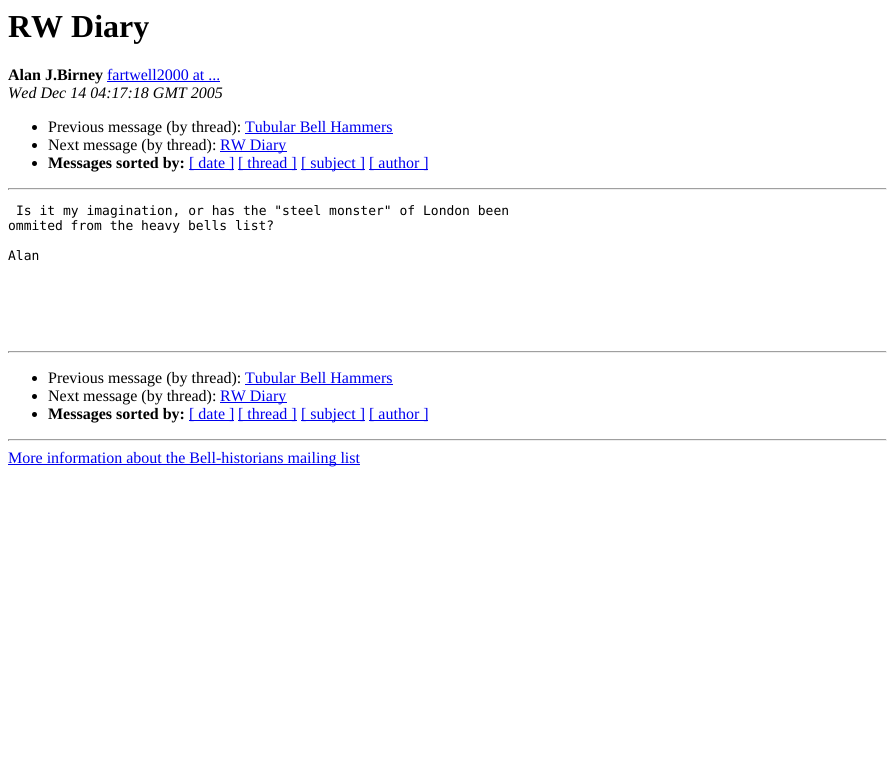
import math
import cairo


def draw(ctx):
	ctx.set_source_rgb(1, 1, 1)
	ctx.paint()
	ctx.select_font_face('Liberation Serif', cairo.FONT_SLANT_NORMAL, cairo.FONT_WEIGHT_BOLD)
	ctx.set_font_size(32)
	ctx.set_source_rgb(0, 0, 0)
	ctx.move_to(8, 37)
	ctx.show_text('RW Diary')
	ctx.set_font_size(16)
	ctx.move_to(8, 80)
	ctx.show_text('Alan J.Birney')
	ctx.select_font_face('Liberation Serif')
	ctx.set_source_rgb(0, 0, 0.933)
	ctx.move_to(107, 80)
	ctx.show_text('fartwell2000 at ...')
	ctx.rectangle(107, 81, 113, 1)
	ctx.fill()
	ctx.select_font_face('Liberation Serif', cairo.FONT_SLANT_ITALIC)
	ctx.set_source_rgb(0, 0, 0)
	ctx.move_to(8, 98)
	ctx.show_text('Wed Dec 14 04:17:18 GMT 2005')
	ctx.new_path()
	ctx.arc(34.5, 127.5, 2.5, 0, 2 * math.pi)
	ctx.fill()
	ctx.select_font_face('Liberation Serif')
	ctx.move_to(48, 132)
	ctx.show_text('Previous message (by thread):')
	ctx.set_source_rgb(0, 0, 0.933)
	ctx.move_to(245, 132)
	ctx.show_text('Tubular Bell Hammers')
	ctx.rectangle(245, 133, 148, 1)
	ctx.fill()
	ctx.set_source_rgb(0, 0, 0)
	ctx.arc(34.5, 145.5, 2.5, 0, 2 * math.pi)
	ctx.fill()
	ctx.move_to(48, 150)
	ctx.show_text('Next message (by thread):')
	ctx.set_source_rgb(0, 0, 0.933)
	ctx.rectangle(220, 151, 67, 1)
	ctx.fill()
	ctx.move_to(220, 150)
	ctx.show_text('RW Diary')
	ctx.set_source_rgb(0, 0, 0)
	ctx.new_path()
	ctx.arc(34.5, 163.5, 2.5, 0, 2 * math.pi)
	ctx.fill()
	ctx.select_font_face('Liberation Serif', cairo.FONT_SLANT_NORMAL, cairo.FONT_WEIGHT_BOLD)
	ctx.move_to(48, 168)
	ctx.show_text('Messages sorted by:')
	ctx.set_source_rgb(0, 0, 0.933)
	ctx.rectangle(189, 169, 45, 1)
	ctx.fill()
	ctx.select_font_face('Liberation Serif')
	ctx.move_to(189, 168)
	ctx.show_text('[ date ]')
	ctx.rectangle(238, 169, 59, 1)
	ctx.fill()
	ctx.move_to(238, 168)
	ctx.show_text('[ thread ]')
	ctx.rectangle(301, 169, 64, 1)
	ctx.fill()
	ctx.move_to(301, 168)
	ctx.show_text('[ subject ]')
	ctx.rectangle(369, 169, 59, 1)
	ctx.fill()
	ctx.move_to(369, 168)
	ctx.show_text('[ author ]')
	ctx.set_source_rgb(0.624, 0.624, 0.624)
	ctx.rectangle(8, 188, 879, 1)
	ctx.fill()
	ctx.set_source_rgb(0.933, 0.933, 0.933)
	ctx.rectangle(886, 188, 1, 2)
	ctx.rectangle(8, 189, 879, 1)
	ctx.fill()
	ctx.set_source_rgb(0.624, 0.624, 0.624)
	ctx.rectangle(8, 188, 1, 2)
	ctx.fill()
	ctx.select_font_face('DejaVu Sans Mono')
	ctx.set_font_size(13)
	ctx.set_source_rgb(0, 0, 0)
	for x, y, s in [
		(16, 215, 'Is it my imagination, or has the "steel monster" of London been'),
		(8, 230, 'ommited from the heavy bells list?'),
		(8, 260, 'Alan'),
	]:
		ctx.move_to(x, y)
		ctx.show_text(s)
	ctx.set_source_rgb(0.624, 0.624, 0.624)
	ctx.rectangle(8, 351, 879, 1)
	ctx.fill()
	ctx.set_source_rgb(0.933, 0.933, 0.933)
	ctx.rectangle(886, 351, 1, 2)
	ctx.rectangle(8, 352, 879, 1)
	ctx.fill()
	ctx.set_source_rgb(0.624, 0.624, 0.624)
	ctx.rectangle(8, 351, 1, 2)
	ctx.fill()
	ctx.set_source_rgb(0, 0, 0)
	ctx.arc(34.5, 378.5, 2.5, 0, 2 * math.pi)
	ctx.fill()
	ctx.select_font_face('Liberation Serif')
	ctx.set_font_size(16)
	ctx.move_to(48, 383)
	ctx.show_text('Previous message (by thread):')
	ctx.set_source_rgb(0, 0, 0.933)
	ctx.move_to(245, 383)
	ctx.show_text('Tubular Bell Hammers')
	ctx.rectangle(245, 384, 148, 1)
	ctx.fill()
	ctx.set_source_rgb(0, 0, 0)
	ctx.arc(34.5, 396.5, 2.5, 0, 2 * math.pi)
	ctx.fill()
	ctx.move_to(48, 401)
	ctx.show_text('Next message (by thread):')
	ctx.set_source_rgb(0, 0, 0.933)
	ctx.rectangle(220, 402, 67, 1)
	ctx.fill()
	ctx.move_to(220, 401)
	ctx.show_text('RW Diary')
	ctx.set_source_rgb(0, 0, 0)
	ctx.new_path()
	ctx.arc(34.5, 414.5, 2.5, 0, 2 * math.pi)
	ctx.fill()
	ctx.select_font_face('Liberation Serif', cairo.FONT_SLANT_NORMAL, cairo.FONT_WEIGHT_BOLD)
	ctx.move_to(48, 419)
	ctx.show_text('Messages sorted by:')
	ctx.set_source_rgb(0, 0, 0.933)
	ctx.rectangle(189, 420, 45, 1)
	ctx.fill()
	ctx.select_font_face('Liberation Serif')
	ctx.move_to(189, 419)
	ctx.show_text('[ date ]')
	ctx.rectangle(238, 420, 59, 1)
	ctx.fill()
	ctx.move_to(238, 419)
	ctx.show_text('[ thread ]')
	ctx.rectangle(301, 420, 64, 1)
	ctx.fill()
	ctx.move_to(301, 419)
	ctx.show_text('[ subject ]')
	ctx.rectangle(369, 420, 59, 1)
	ctx.fill()
	ctx.move_to(369, 419)
	ctx.show_text('[ author ]')
	ctx.set_source_rgb(0.624, 0.624, 0.624)
	ctx.rectangle(8, 439, 879, 1)
	ctx.fill()
	ctx.set_source_rgb(0.933, 0.933, 0.933)
	ctx.rectangle(886, 439, 1, 2)
	ctx.rectangle(8, 440, 879, 1)
	ctx.fill()
	ctx.set_source_rgb(0.624, 0.624, 0.624)
	ctx.rectangle(8, 439, 1, 2)
	ctx.fill()
	ctx.set_source_rgb(0, 0, 0.933)
	ctx.rectangle(8, 464, 352, 1)
	ctx.fill()
	ctx.move_to(8, 463)
	ctx.show_text('More information about the Bell-historians mailing list')


surface = cairo.ImageSurface(cairo.FORMAT_RGB24, 895, 764)
ctx = cairo.Context(surface)
options = cairo.FontOptions()
options.set_hint_metrics(cairo.HINT_METRICS_OFF)
options.set_hint_style(cairo.HINT_STYLE_NONE)
ctx.set_font_options(options)
ctx.set_miter_limit(4)
draw(ctx)
surface.write_to_png('image.png')
